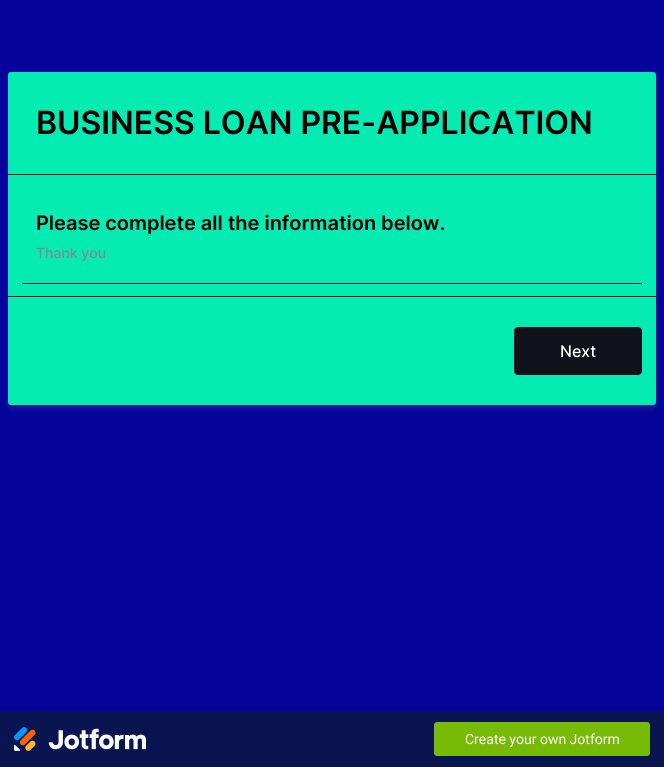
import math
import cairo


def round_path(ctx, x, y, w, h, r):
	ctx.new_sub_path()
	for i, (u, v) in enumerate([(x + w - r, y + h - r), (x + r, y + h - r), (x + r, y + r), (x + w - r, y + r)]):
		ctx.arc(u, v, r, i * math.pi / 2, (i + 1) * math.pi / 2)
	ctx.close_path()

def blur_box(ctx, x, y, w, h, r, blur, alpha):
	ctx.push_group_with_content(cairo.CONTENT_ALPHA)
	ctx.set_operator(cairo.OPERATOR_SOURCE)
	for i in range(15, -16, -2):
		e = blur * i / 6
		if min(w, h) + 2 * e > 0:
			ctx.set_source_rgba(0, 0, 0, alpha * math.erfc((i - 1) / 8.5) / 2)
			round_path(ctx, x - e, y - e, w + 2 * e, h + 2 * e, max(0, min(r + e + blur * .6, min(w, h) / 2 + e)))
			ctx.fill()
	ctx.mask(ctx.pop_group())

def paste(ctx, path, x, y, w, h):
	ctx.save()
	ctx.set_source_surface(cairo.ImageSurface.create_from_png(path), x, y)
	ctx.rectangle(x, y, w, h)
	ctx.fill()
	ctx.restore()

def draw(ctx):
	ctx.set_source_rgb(0.02, 0.02, 0.608)
	ctx.paint()
	ctx.set_source_rgb(0.341, 0.392, 0.494)
	blur_box(ctx, 8, 76, 648, 333, 3, 2, 0.21)
	ctx.set_source_rgb(0.02, 0.925, 0.698)
	round_path(ctx, 8, 72, 648, 333, 3)
	ctx.fill()
	ctx.set_source_rgb(0.067, 0.067, 0.106)
	ctx.rectangle(8, 174, 648, 1)
	ctx.fill()
	ctx.select_font_face('Inter SemiBold')
	ctx.set_font_size(32)
	ctx.set_source_rgb(0, 0, 0)
	ctx.move_to(36, 134)
	ctx.show_text('BUSINESS LOAN PRE-APPLICATION')
	ctx.set_source_rgb(0.067, 0.067, 0.106)
	ctx.rectangle(22, 283, 620, 1)
	ctx.fill()
	ctx.set_font_size(20)
	ctx.set_source_rgb(0, 0, 0)
	ctx.move_to(36, 230)
	ctx.show_text('Please complete all the information below.')
	ctx.select_font_face('Inter Medium')
	ctx.set_font_size(14)
	ctx.set_source_rgb(0.514, 0.533, 0.584)
	ctx.move_to(36, 258)
	ctx.show_text('Thank you')
	ctx.set_source_rgb(0.067, 0.067, 0.106)
	ctx.rectangle(8, 296, 648, 1)
	ctx.fill()
	round_path(ctx, 514.5, 327.5, 127, 47, 3.5)
	ctx.fill_preserve()
	ctx.set_line_width(1)
	ctx.stroke()
	ctx.set_font_size(16)
	ctx.set_source_rgb(1, 1, 1)
	ctx.move_to(560, 357)
	ctx.show_text('Next')
	ctx.set_source_rgb(0.039, 0.082, 0.318)
	ctx.rectangle(0, 711, 664, 56)
	ctx.fill()
	paste(ctx, 'media/1.png', 14, 727, 132, 24)
	ctx.set_source_rgb(0.471, 0.733, 0.027)
	round_path(ctx, 434, 722, 216, 34, 3)
	ctx.fill()
	ctx.select_font_face('Roboto')
	ctx.set_font_size(14)
	ctx.set_source_rgb(1, 1, 1)
	ctx.move_to(465, 744)
	ctx.show_text('Create your own Jotform')


surface = cairo.ImageSurface(cairo.FORMAT_RGB24, 664, 767)
ctx = cairo.Context(surface)
options = cairo.FontOptions()
options.set_hint_metrics(cairo.HINT_METRICS_OFF)
options.set_hint_style(cairo.HINT_STYLE_NONE)
ctx.set_font_options(options)
ctx.set_miter_limit(4)
draw(ctx)
surface.write_to_png('image.png')
